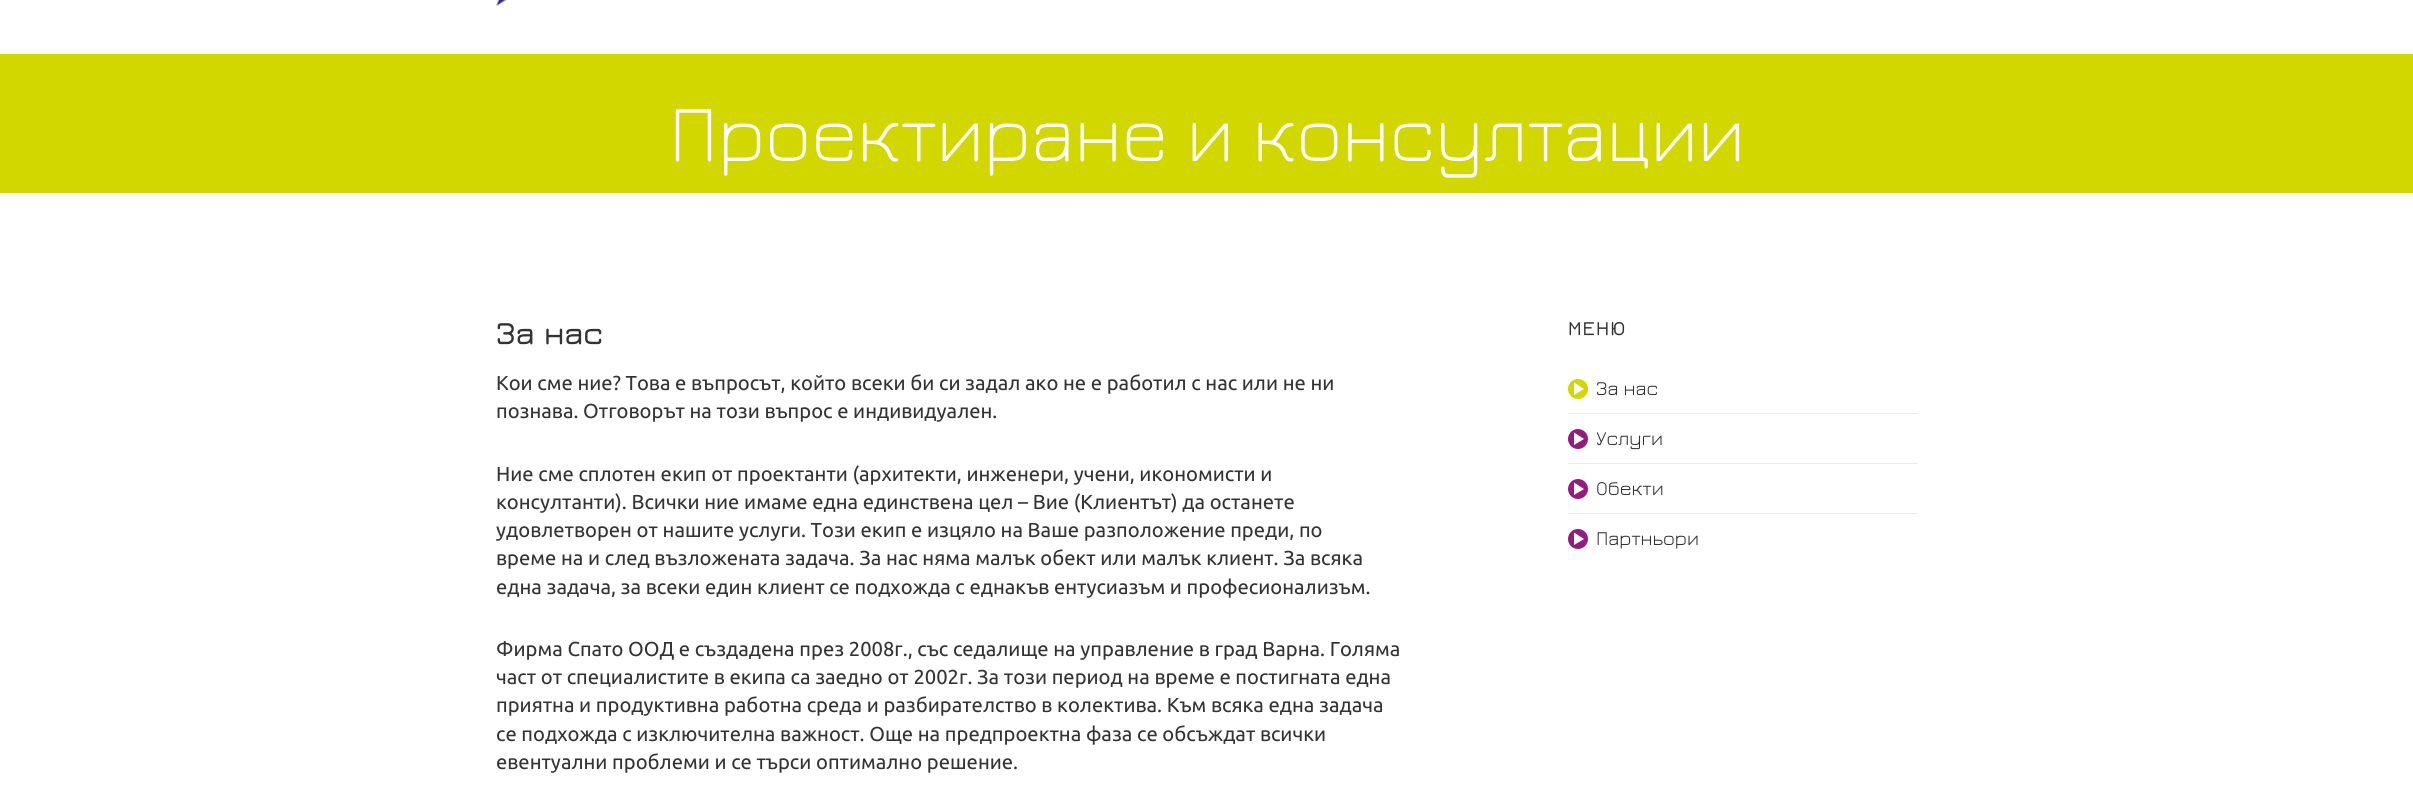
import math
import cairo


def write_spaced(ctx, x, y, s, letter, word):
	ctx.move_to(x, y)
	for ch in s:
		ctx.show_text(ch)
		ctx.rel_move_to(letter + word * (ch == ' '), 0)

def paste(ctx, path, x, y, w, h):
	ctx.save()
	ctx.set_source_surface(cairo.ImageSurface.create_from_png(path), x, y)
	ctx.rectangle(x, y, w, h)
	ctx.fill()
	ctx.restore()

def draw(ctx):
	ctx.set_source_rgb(1, 1, 1)
	ctx.paint()
	paste(ctx, 'media/1.png', 496, 0, 11, 7)
	ctx.set_source_rgb(0.827, 0.843, 0)
	ctx.rectangle(0, 54, 2413, 139)
	ctx.fill()
	ctx.select_font_face('Jura Light')
	ctx.set_font_size(81.25)
	ctx.set_source_rgb(1, 1, 1)
	ctx.move_to(669, 161)
	ctx.show_text('Проектиране и консултации')
	ctx.select_font_face('Jura SemiBold')
	ctx.set_font_size(32.5)
	ctx.set_source_rgb(0.2, 0.2, 0.2)
	ctx.move_to(496, 344)
	ctx.show_text('За нас')
	ctx.select_font_face('Ubuntu')
	ctx.set_font_size(20.2)
	for x, y, s in [
		(496, 390, 'Кои сме ние? Това е въпросът, който всеки би си задал ако не е работил с нас или не ни'),
		(496, 418, 'познава. Отговорът на този въпрос е индивидуален.'),
		(496, 481, 'Ние сме сплотен екип от проектанти (архитекти, инженери, учени, икономисти и'),
		(496, 509, 'консултанти). Всички ние имаме една единствена цел – Вие (Клиентът) да останете'),
		(496, 537, 'удовлетворен от нашите услуги. Този екип е изцяло на Ваше разположение преди, по'),
		(496, 565, 'време на и след възложената задача. За нас няма малък обект или малък клиент. За всяка'),
		(496, 594, 'една задача, за всеки един клиент се подхожда с еднакъв ентусиазъм и професионализъм.'),
		(496, 656, 'Фирма Спато ООД е създадена през 2008г., със седалище на управление в град Варна. Голяма'),
		(496, 684, 'част от специалистите в екипа са заедно от 2002г. За този период на време е постигната една'),
		(496, 712, 'приятна и продуктивна работна среда и разбирателство в колектива. Към всяка една задача'),
		(496, 741, 'се подхожда с изключителна важност. Още на предпроектна фаза се обсъждат всички'),
		(496, 769, 'евентуални проблеми и се търси оптимално решение.'),
	]:
		ctx.move_to(x, y)
		ctx.show_text(s)
	ctx.select_font_face('Jura SemiBold')
	ctx.set_font_size(20)
	write_spaced(ctx, 1568, 335, 'МЕНЮ', 1, 0)
	ctx.set_source_rgb(0.827, 0.843, 0)
	ctx.new_path()
	ctx.arc(1578, 389, 10, 0, 2 * math.pi)
	ctx.fill()
	ctx.set_source_rgb(1, 1, 1)
	ctx.new_path()
	ctx.move_to(1574, 382.5)
	ctx.line_to(1584, 389)
	ctx.line_to(1574, 395)
	ctx.close_path()
	ctx.fill()
	ctx.select_font_face('Jura')
	ctx.set_source_rgb(0.2, 0.2, 0.2)
	ctx.move_to(1596, 395)
	ctx.show_text('За нас')
	ctx.set_source_rgb(0.922, 0.922, 0.922)
	ctx.rectangle(1568, 413, 350, 1)
	ctx.fill()
	ctx.set_source_rgb(0.58, 0.106, 0.502)
	ctx.arc(1578, 439, 10, 0, 2 * math.pi)
	ctx.fill()
	ctx.set_source_rgb(1, 1, 1)
	ctx.new_path()
	ctx.move_to(1574, 432.5)
	ctx.line_to(1584, 439)
	ctx.line_to(1574, 445)
	ctx.close_path()
	ctx.fill()
	ctx.set_source_rgb(0.2, 0.2, 0.2)
	ctx.move_to(1596, 445)
	ctx.show_text('Услуги')
	ctx.set_source_rgb(0.922, 0.922, 0.922)
	ctx.rectangle(1568, 463, 350, 1)
	ctx.fill()
	ctx.set_source_rgb(0.58, 0.106, 0.502)
	ctx.arc(1578, 489, 10, 0, 2 * math.pi)
	ctx.fill()
	ctx.set_source_rgb(1, 1, 1)
	ctx.new_path()
	ctx.move_to(1574, 482.5)
	ctx.line_to(1584, 489)
	ctx.line_to(1574, 495)
	ctx.close_path()
	ctx.fill()
	ctx.set_source_rgb(0.2, 0.2, 0.2)
	ctx.move_to(1596, 495)
	ctx.show_text('Обекти')
	ctx.set_source_rgb(0.922, 0.922, 0.922)
	ctx.rectangle(1568, 513, 350, 1)
	ctx.fill()
	ctx.set_source_rgb(0.58, 0.106, 0.502)
	ctx.arc(1578, 539, 10, 0, 2 * math.pi)
	ctx.fill()
	ctx.set_source_rgb(1, 1, 1)
	ctx.new_path()
	ctx.move_to(1574, 532.5)
	ctx.line_to(1584, 539)
	ctx.line_to(1574, 545)
	ctx.close_path()
	ctx.fill()
	ctx.set_source_rgb(0.2, 0.2, 0.2)
	ctx.move_to(1596, 545)
	ctx.show_text('Партньори')


surface = cairo.ImageSurface(cairo.FORMAT_RGB24, 2413, 805)
ctx = cairo.Context(surface)
options = cairo.FontOptions()
options.set_hint_metrics(cairo.HINT_METRICS_OFF)
options.set_hint_style(cairo.HINT_STYLE_NONE)
ctx.set_font_options(options)
ctx.set_miter_limit(4)
draw(ctx)
surface.write_to_png('image.png')
